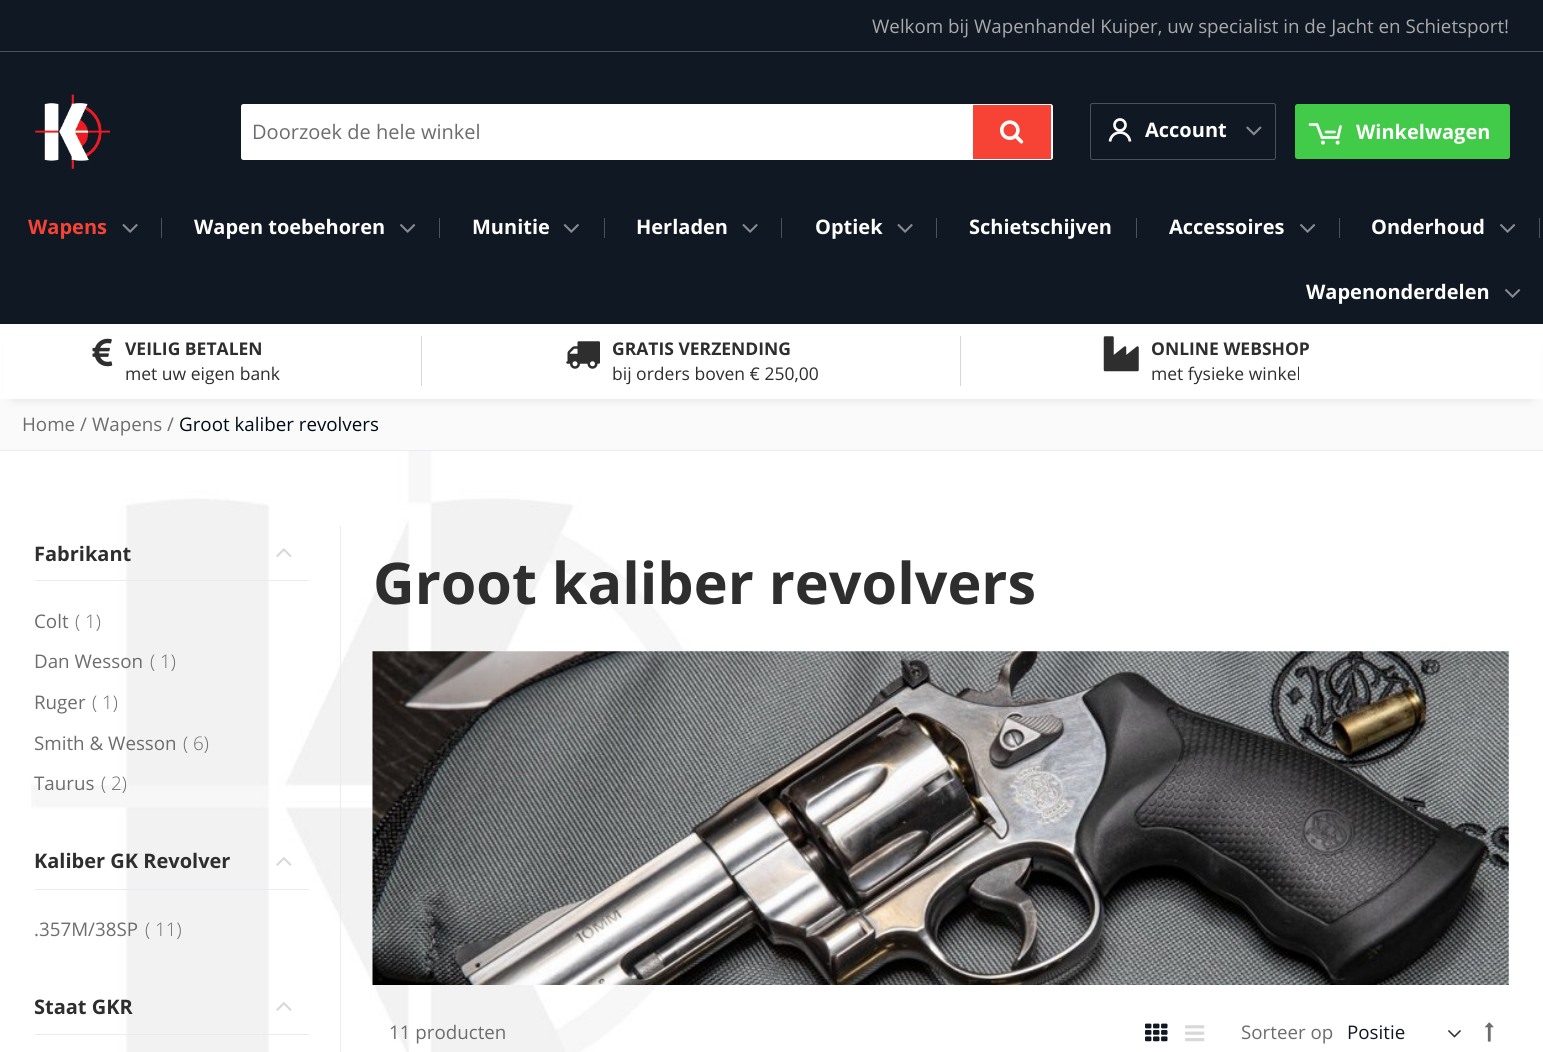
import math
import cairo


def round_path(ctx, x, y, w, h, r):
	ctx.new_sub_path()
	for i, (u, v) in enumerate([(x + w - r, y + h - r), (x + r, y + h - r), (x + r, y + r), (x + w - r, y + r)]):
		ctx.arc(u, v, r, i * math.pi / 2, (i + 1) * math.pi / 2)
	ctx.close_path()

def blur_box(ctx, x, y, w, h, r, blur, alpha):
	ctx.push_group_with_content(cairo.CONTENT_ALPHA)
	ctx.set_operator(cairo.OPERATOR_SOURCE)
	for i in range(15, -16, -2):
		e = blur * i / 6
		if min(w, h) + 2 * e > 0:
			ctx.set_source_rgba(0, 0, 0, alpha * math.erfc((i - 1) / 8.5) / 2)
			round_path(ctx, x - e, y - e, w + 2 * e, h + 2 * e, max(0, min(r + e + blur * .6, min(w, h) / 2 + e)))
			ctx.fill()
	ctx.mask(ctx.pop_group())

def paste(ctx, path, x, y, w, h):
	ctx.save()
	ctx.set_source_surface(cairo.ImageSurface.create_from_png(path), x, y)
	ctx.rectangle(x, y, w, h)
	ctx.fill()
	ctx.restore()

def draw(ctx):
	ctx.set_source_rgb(1, 1, 1)
	ctx.paint()
	paste(ctx, 'media/1.png', 31, 451, 787, 601)
	ctx.set_source_rgb(0.063, 0.094, 0.141)
	ctx.rectangle(0, 0, 1543, 324)
	ctx.fill()
	ctx.set_source_rgb(0.298, 0.322, 0.353)
	ctx.rectangle(0, 51, 1543, 1)
	ctx.fill()
	ctx.select_font_face('Open Sans')
	ctx.set_font_size(18.75)
	ctx.set_source_rgb(0.663, 0.663, 0.663)
	ctx.move_to(872, 33)
	ctx.show_text('Welkom bij Wapenhandel Kuiper, uw specialist in de Jacht en Schietsport!')
	paste(ctx, 'media/2.png', 35, 94, 75, 75)
	ctx.set_source_rgb(1, 1, 1)
	round_path(ctx, 241, 104, 812, 56, 2.5)
	ctx.fill()
	ctx.set_font_size(20)
	ctx.set_source_rgb(0.427, 0.427, 0.427)
	ctx.move_to(252, 139)
	ctx.show_text('Doorzoek de hele winkel')
	ctx.set_source_rgb(0.961, 0.263, 0.212)
	ctx.rectangle(973, 105, 78, 54)
	ctx.fill()
	paste(ctx, 'media/3.png', 1000, 120, 24, 24)
	round_path(ctx, 1090.5, 103.5, 185, 56, 2)
	ctx.set_source_rgb(0.298, 0.322, 0.353)
	ctx.set_line_width(1)
	ctx.stroke()
	ctx.arc(1120, 125, 5.5, 0, 2 * math.pi)
	ctx.set_source_rgb(1, 1, 1)
	ctx.set_line_width(2.7)
	ctx.stroke()
	ctx.new_path()
	ctx.move_to(1130, 141.5)
	ctx.curve_to(1128.5, 129.5, 1111.5, 129.5, 1110, 141.5)
	ctx.stroke()
	ctx.select_font_face('Open Sans', cairo.FONT_SLANT_NORMAL, cairo.FONT_WEIGHT_BOLD)
	ctx.move_to(1145, 137)
	ctx.show_text('Account')
	paste(ctx, 'media/4.png', 1246, 126, 16, 10)
	ctx.set_source_rgb(0.259, 0.792, 0.286)
	round_path(ctx, 1295, 104, 215, 55, 2.5)
	ctx.fill()
	ctx.new_path()
	ctx.move_to(1310, 124.5)
	ctx.line_to(1317, 124.5)
	ctx.line_to(1322, 137.5)
	ctx.line_to(1338, 137.5)
	ctx.line_to(1340.5, 126.5)
	ctx.move_to(1326, 132)
	ctx.line_to(1334.5, 132)
	ctx.set_source_rgb(1, 1, 1)
	ctx.set_line_cap(cairo.LINE_CAP_ROUND)
	ctx.stroke()
	ctx.arc(1322.9, 142.6, 2, 0, 2 * math.pi)
	ctx.fill()
	ctx.arc(1337.6, 142.6, 2, 0, 2 * math.pi)
	ctx.fill()
	ctx.move_to(1356, 139)
	ctx.show_text('Winkelwagen')
	ctx.set_source_rgb(0.961, 0.263, 0.212)
	ctx.move_to(28, 234)
	ctx.show_text('Wapens')
	paste(ctx, 'media/5.png', 122, 224, 16, 9)
	ctx.set_source_rgb(0.298, 0.322, 0.353)
	ctx.rectangle(161, 218, 1, 20)
	ctx.fill()
	ctx.set_source_rgb(1, 1, 1)
	ctx.move_to(194, 234)
	ctx.show_text('Wapen toebehoren')
	paste(ctx, 'media/6.png', 400, 224, 16, 9)
	ctx.set_source_rgb(0.298, 0.322, 0.353)
	ctx.rectangle(439, 218, 1, 20)
	ctx.fill()
	ctx.set_source_rgb(1, 1, 1)
	ctx.move_to(472, 234)
	ctx.show_text('Munitie')
	paste(ctx, 'media/7.png', 563, 224, 16, 9)
	ctx.set_source_rgb(0.298, 0.322, 0.353)
	ctx.rectangle(604, 218, 1, 20)
	ctx.fill()
	ctx.set_source_rgb(1, 1, 1)
	ctx.move_to(636, 234)
	ctx.show_text('Herladen')
	paste(ctx, 'media/5.png', 742, 224, 16, 9)
	ctx.set_source_rgb(0.298, 0.322, 0.353)
	ctx.rectangle(781, 218, 1, 20)
	ctx.fill()
	ctx.set_source_rgb(1, 1, 1)
	ctx.move_to(815, 234)
	ctx.show_text('Optiek')
	paste(ctx, 'media/5.png', 897, 224, 16, 9)
	ctx.set_source_rgb(0.298, 0.322, 0.353)
	ctx.rectangle(936, 218, 1, 20)
	ctx.fill()
	ctx.set_source_rgb(1, 1, 1)
	ctx.move_to(969, 234)
	ctx.show_text('Schietschijven')
	ctx.set_source_rgb(0.298, 0.322, 0.353)
	ctx.rectangle(1136, 218, 1, 20)
	ctx.fill()
	ctx.set_source_rgb(1, 1, 1)
	ctx.move_to(1169, 234)
	ctx.show_text('Accessoires')
	paste(ctx, 'media/6.png', 1300, 224, 16, 9)
	ctx.set_source_rgb(0.298, 0.322, 0.353)
	ctx.rectangle(1339, 218, 1, 20)
	ctx.fill()
	ctx.set_source_rgb(1, 1, 1)
	ctx.move_to(1371, 234)
	ctx.show_text('Onderhoud')
	paste(ctx, 'media/6.png', 1500, 224, 16, 9)
	ctx.set_source_rgb(0.298, 0.322, 0.353)
	ctx.rectangle(1539, 218, 1, 20)
	ctx.fill()
	ctx.set_source_rgb(1, 1, 1)
	ctx.move_to(1306, 299)
	ctx.show_text('Wapenonderdelen')
	paste(ctx, 'media/6.png', 1505, 289, 16, 9)
	ctx.set_source_rgb(0.98, 0.98, 0.98)
	ctx.rectangle(0, 399, 1543, 51)
	ctx.fill()
	ctx.set_source_rgb(0, 0, 0)
	blur_box(ctx, 13, 346, 1518, 50, 0, 6, 0.2)
	ctx.set_source_rgb(1, 1, 1)
	ctx.rectangle(3, 336, 1538, 63)
	ctx.fill()
	paste(ctx, 'media/8.png', 92, 338, 21, 29)
	ctx.set_font_size(17.5)
	ctx.set_source_rgb(0.18, 0.18, 0.18)
	ctx.move_to(125, 355)
	ctx.show_text('VEILIG BETALEN')
	ctx.select_font_face('Open Sans')
	ctx.move_to(125, 380)
	ctx.show_text('met uw eigen bank')
	ctx.set_source_rgb(0.831, 0.847, 0.855)
	ctx.rectangle(421, 336, 1, 50)
	ctx.fill()
	paste(ctx, 'media/9.png', 566, 341, 34, 28)
	ctx.select_font_face('Open Sans', cairo.FONT_SLANT_NORMAL, cairo.FONT_WEIGHT_BOLD)
	ctx.set_source_rgb(0.18, 0.18, 0.18)
	ctx.move_to(612, 355)
	ctx.show_text('GRATIS VERZENDING')
	ctx.select_font_face('Open Sans')
	ctx.move_to(612, 380)
	ctx.show_text('bij orders boven € 250,00')
	ctx.set_source_rgb(0.831, 0.847, 0.855)
	ctx.rectangle(960, 336, 1, 50)
	ctx.fill()
	paste(ctx, 'media/10.png', 1103, 336, 36, 36)
	ctx.select_font_face('Open Sans', cairo.FONT_SLANT_NORMAL, cairo.FONT_WEIGHT_BOLD)
	ctx.set_source_rgb(0.18, 0.18, 0.18)
	ctx.move_to(1151, 355)
	ctx.show_text('ONLINE WEBSHOP')
	ctx.select_font_face('Open Sans')
	ctx.move_to(1151, 380)
	ctx.show_text('met fysieke winkel')
	ctx.set_source_rgb(0.914, 0.925, 0.945)
	ctx.rectangle(0, 450, 1543, 1)
	ctx.fill()
	ctx.set_font_size(18.75)
	ctx.set_source_rgb(0.427, 0.427, 0.427)
	for x, y, s in [
		(22, 431, 'Home'),
		(80, 431, '/'),
		(92, 431, 'Wapens'),
		(167, 431, '/'),
	]:
		ctx.move_to(x, y)
		ctx.show_text(s)
	ctx.set_source_rgb(0, 0.047, 0.071)
	ctx.move_to(179, 431)
	ctx.show_text('Groot kaliber revolvers')
	ctx.set_source_rgb(0.914, 0.925, 0.945)
	ctx.rectangle(340, 526, 1, 526)
	ctx.fill()
	ctx.rectangle(35, 580, 274, 1)
	ctx.fill()
	ctx.select_font_face('Open Sans', cairo.FONT_SLANT_NORMAL, cairo.FONT_WEIGHT_BOLD)
	ctx.set_font_size(20)
	ctx.set_source_rgb(0.18, 0.18, 0.18)
	ctx.move_to(34, 561)
	ctx.show_text('Fabrikant')
	paste(ctx, 'media/11.png', 276, 548, 16, 9)
	ctx.select_font_face('Open Sans')
	ctx.set_font_size(18.75)
	ctx.set_source_rgb(0.427, 0.427, 0.427)
	ctx.move_to(34, 628)
	ctx.show_text('Colt')
	ctx.select_font_face('Open Sans Light')
	ctx.move_to(75, 628)
	ctx.show_text('( 1)')
	ctx.select_font_face('Open Sans')
	ctx.move_to(34, 668)
	ctx.show_text('Dan Wesson')
	ctx.select_font_face('Open Sans Light')
	ctx.move_to(150, 668)
	ctx.show_text('( 1)')
	ctx.select_font_face('Open Sans')
	ctx.move_to(34, 709)
	ctx.show_text('Ruger')
	ctx.select_font_face('Open Sans Light')
	ctx.move_to(92, 709)
	ctx.show_text('( 1)')
	ctx.select_font_face('Open Sans')
	ctx.move_to(34, 750)
	ctx.show_text('Smith & Wesson')
	ctx.select_font_face('Open Sans Light')
	ctx.move_to(183, 750)
	ctx.show_text('( 6)')
	ctx.select_font_face('Open Sans')
	ctx.move_to(34, 790)
	ctx.show_text('Taurus')
	ctx.select_font_face('Open Sans Light')
	ctx.move_to(101, 790)
	ctx.show_text('( 2)')
	ctx.set_source_rgb(0.914, 0.925, 0.945)
	ctx.rectangle(35, 889, 274, 1)
	ctx.fill()
	ctx.select_font_face('Open Sans', cairo.FONT_SLANT_NORMAL, cairo.FONT_WEIGHT_BOLD)
	ctx.set_font_size(20)
	ctx.set_source_rgb(0.18, 0.18, 0.18)
	ctx.move_to(34, 868)
	ctx.show_text('Kaliber GK Revolver')
	paste(ctx, 'media/12.png', 276, 857, 16, 9)
	ctx.select_font_face('Open Sans')
	ctx.set_font_size(18.75)
	ctx.set_source_rgb(0.427, 0.427, 0.427)
	ctx.move_to(34, 936)
	ctx.show_text('.357M/38SP')
	ctx.select_font_face('Open Sans Light')
	ctx.move_to(145, 936)
	ctx.show_text('( 11)')
	ctx.set_source_rgb(0.914, 0.925, 0.945)
	ctx.rectangle(35, 1034, 274, 1)
	ctx.fill()
	ctx.select_font_face('Open Sans', cairo.FONT_SLANT_NORMAL, cairo.FONT_WEIGHT_BOLD)
	ctx.set_font_size(20)
	ctx.set_source_rgb(0.18, 0.18, 0.18)
	ctx.move_to(34, 1014)
	ctx.show_text('Staat GKR')
	paste(ctx, 'media/12.png', 276, 1002, 16, 9)
	ctx.set_font_size(57.5)
	ctx.move_to(373, 604)
	ctx.show_text('Groot kaliber revolvers')
	paste(ctx, 'media/13.png', 372, 651, 1137, 334)
	ctx.select_font_face('Open Sans')
	ctx.set_font_size(18.75)
	ctx.set_source_rgb(0.427, 0.427, 0.427)
	ctx.move_to(389, 1039)
	ctx.show_text('11 producten')
	paste(ctx, 'media/14.png', 1145, 1023, 23, 19)
	paste(ctx, 'media/15.png', 1185, 1025, 20, 17)
	ctx.move_to(1241, 1039)
	ctx.show_text('Sorteer op')
	paste(ctx, 'media/16.png', 1448, 1029, 13, 9)
	ctx.set_source_rgb(0.063, 0.094, 0.141)
	ctx.move_to(1347, 1039)
	ctx.show_text('Positie')
	paste(ctx, 'media/17.png', 1485, 1022, 9, 20)


surface = cairo.ImageSurface(cairo.FORMAT_RGB24, 1543, 1052)
ctx = cairo.Context(surface)
options = cairo.FontOptions()
options.set_hint_metrics(cairo.HINT_METRICS_OFF)
options.set_hint_style(cairo.HINT_STYLE_NONE)
ctx.set_font_options(options)
ctx.set_miter_limit(4)
draw(ctx)
surface.write_to_png('image.png')
